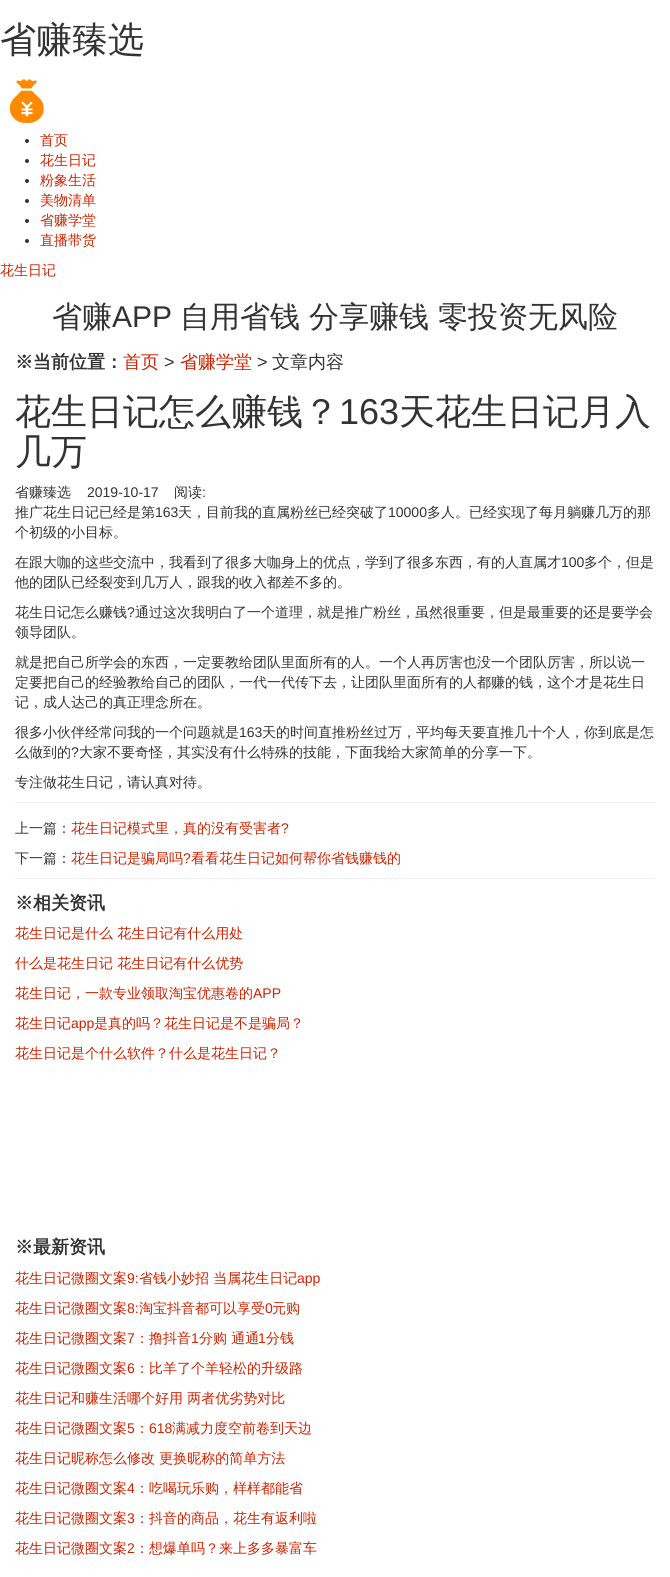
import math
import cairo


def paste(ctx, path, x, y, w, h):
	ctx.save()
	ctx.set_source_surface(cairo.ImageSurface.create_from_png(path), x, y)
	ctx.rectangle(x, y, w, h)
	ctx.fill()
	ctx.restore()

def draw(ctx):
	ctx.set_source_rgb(1, 1, 1)
	ctx.paint()
	ctx.select_font_face('WenQuanYi Zen Hei Medium')
	ctx.set_font_size(36)
	ctx.set_source_rgb(0.2, 0.2, 0.2)
	ctx.move_to(0, 52)
	ctx.show_text('省赚臻选')
	paste(ctx, 'media/1.png', 10, 79, 34, 44)
	ctx.arc(27, 141, 2, 0, 2 * math.pi)
	ctx.fill()
	ctx.set_font_size(14)
	ctx.set_source_rgb(0.808, 0.133, 0)
	ctx.move_to(40, 145)
	ctx.show_text('首页')
	ctx.set_source_rgb(0.2, 0.2, 0.2)
	ctx.new_path()
	ctx.arc(27, 161, 2, 0, 2 * math.pi)
	ctx.fill()
	ctx.set_source_rgb(0.808, 0.133, 0)
	ctx.move_to(40, 165)
	ctx.show_text('花生日记')
	ctx.set_source_rgb(0.2, 0.2, 0.2)
	ctx.new_path()
	ctx.arc(27, 181, 2, 0, 2 * math.pi)
	ctx.fill()
	ctx.set_source_rgb(0.808, 0.133, 0)
	ctx.move_to(40, 185)
	ctx.show_text('粉象生活')
	ctx.set_source_rgb(0.2, 0.2, 0.2)
	ctx.new_path()
	ctx.arc(27, 201, 2, 0, 2 * math.pi)
	ctx.fill()
	ctx.set_source_rgb(0.808, 0.133, 0)
	ctx.move_to(40, 205)
	ctx.show_text('美物清单')
	ctx.set_source_rgb(0.2, 0.2, 0.2)
	ctx.new_path()
	ctx.arc(27, 221, 2, 0, 2 * math.pi)
	ctx.fill()
	ctx.set_source_rgb(0.808, 0.133, 0)
	ctx.move_to(40, 225)
	ctx.show_text('省赚学堂')
	ctx.set_source_rgb(0.2, 0.2, 0.2)
	ctx.new_path()
	ctx.arc(27, 241, 2, 0, 2 * math.pi)
	ctx.fill()
	ctx.set_source_rgb(0.808, 0.133, 0)
	ctx.move_to(40, 245)
	ctx.show_text('直播带货')
	ctx.move_to(0, 275)
	ctx.show_text('花生日记')
	ctx.set_font_size(30)
	ctx.set_source_rgb(0.2, 0.2, 0.2)
	ctx.move_to(52, 327)
	ctx.show_text('省赚')
	ctx.select_font_face('Liberation Sans')
	ctx.move_to(112, 327)
	ctx.show_text('APP')
	ctx.select_font_face('WenQuanYi Zen Hei Medium')
	ctx.move_to(180, 327)
	ctx.show_text('自用省钱 分享赚钱 零投资无风险')
	ctx.select_font_face('WenQuanYi Zen Hei', cairo.FONT_SLANT_NORMAL, cairo.FONT_WEIGHT_BOLD)
	ctx.set_font_size(18)
	ctx.move_to(15, 368)
	ctx.show_text('※当前位置：')
	ctx.select_font_face('WenQuanYi Zen Hei Medium')
	ctx.set_source_rgb(0.808, 0.133, 0)
	ctx.move_to(123, 368)
	ctx.show_text('首页')
	ctx.select_font_face('Liberation Sans')
	ctx.set_source_rgb(0.2, 0.2, 0.2)
	ctx.move_to(164, 368)
	ctx.show_text('>')
	ctx.select_font_face('WenQuanYi Zen Hei Medium')
	ctx.set_source_rgb(0.808, 0.133, 0)
	ctx.move_to(180, 368)
	ctx.show_text('省赚学堂')
	ctx.select_font_face('Liberation Sans')
	ctx.set_source_rgb(0.2, 0.2, 0.2)
	ctx.move_to(257, 368)
	ctx.show_text('>')
	ctx.select_font_face('WenQuanYi Zen Hei Medium')
	ctx.move_to(272, 368)
	ctx.show_text('文章内容')
	ctx.set_font_size(36)
	ctx.move_to(15, 424)
	ctx.show_text('花生日记怎么赚钱？')
	ctx.select_font_face('Liberation Sans')
	ctx.move_to(339, 424)
	ctx.show_text('163')
	ctx.select_font_face('WenQuanYi Zen Hei Medium')
	ctx.move_to(399, 424)
	ctx.show_text('天花生日记月入')
	ctx.move_to(15, 464)
	ctx.show_text('几万')
	ctx.set_font_size(14)
	ctx.move_to(15, 497)
	ctx.show_text('省赚臻选')
	ctx.select_font_face('Liberation Sans')
	ctx.move_to(87, 497)
	ctx.show_text('2019-10-17')
	ctx.select_font_face('WenQuanYi Zen Hei Medium')
	ctx.move_to(174, 497)
	ctx.show_text('阅读')
	ctx.select_font_face('Liberation Sans')
	ctx.move_to(202, 497)
	ctx.show_text(':')
	ctx.select_font_face('WenQuanYi Zen Hei Medium')
	ctx.move_to(15, 517)
	ctx.show_text('推广花生日记已经是第')
	ctx.select_font_face('Liberation Sans')
	ctx.move_to(155, 517)
	ctx.show_text('163')
	ctx.select_font_face('WenQuanYi Zen Hei Medium')
	ctx.move_to(178, 517)
	ctx.show_text('天，目前我的直属粉丝已经突破了')
	ctx.select_font_face('Liberation Sans')
	ctx.move_to(388, 517)
	ctx.show_text('10000')
	ctx.select_font_face('WenQuanYi Zen Hei Medium')
	for x, y, s in [
		(427, 517, '多人。已经实现了每月躺赚几万的那'),
		(15, 537, '个初级的小目标。'),
		(15, 567, '在跟大咖的这些交流中，我看到了很多大咖身上的优点，学到了很多东西，有的人直属才'),
	]:
		ctx.move_to(x, y)
		ctx.show_text(s)
	ctx.select_font_face('Liberation Sans')
	ctx.move_to(561, 567)
	ctx.show_text('100')
	ctx.select_font_face('WenQuanYi Zen Hei Medium')
	for x, y, s in [
		(584, 567, '多个，但是'),
		(15, 587, '他的团队已经裂变到几万人，跟我的收入都差不多的。'),
		(15, 617, '花生日记怎么赚钱'),
	]:
		ctx.move_to(x, y)
		ctx.show_text(s)
	ctx.select_font_face('Liberation Sans')
	ctx.move_to(127, 617)
	ctx.show_text('?')
	ctx.select_font_face('WenQuanYi Zen Hei Medium')
	for x, y, s in [
		(135, 617, '通过这次我明白了一个道理，就是推广粉丝，虽然很重要，但是最重要的还是要学会'),
		(15, 637, '领导团队。'),
		(15, 667, '就是把自己所学会的东西，一定要教给团队里面所有的人。一个人再厉害也没一个团队厉害，所以说一'),
		(15, 687, '定要把自己的经验教给自己的团队，一代一代传下去，让团队里面所有的人都赚的钱，这个才是花生日'),
		(15, 707, '记，成人达己的真正理念所在。'),
		(15, 737, '很多小伙伴经常问我的一个问题就是'),
	]:
		ctx.move_to(x, y)
		ctx.show_text(s)
	ctx.select_font_face('Liberation Sans')
	ctx.move_to(239, 737)
	ctx.show_text('163')
	ctx.select_font_face('WenQuanYi Zen Hei Medium')
	ctx.move_to(262, 737)
	ctx.show_text('天的时间直推粉丝过万，平均每天要直推几十个人，你到底是怎')
	ctx.move_to(15, 757)
	ctx.show_text('么做到的')
	ctx.select_font_face('Liberation Sans')
	ctx.move_to(71, 757)
	ctx.show_text('?')
	ctx.select_font_face('WenQuanYi Zen Hei Medium')
	ctx.move_to(79, 757)
	ctx.show_text('大家不要奇怪，其实没有什么特殊的技能，下面我给大家简单的分享一下。')
	ctx.move_to(15, 787)
	ctx.show_text('专注做花生日记，请认真对待。')
	ctx.set_source_rgb(0.933, 0.933, 0.933)
	ctx.rectangle(15, 802, 640, 1)
	ctx.fill()
	ctx.set_source_rgb(0.2, 0.2, 0.2)
	ctx.move_to(15, 833)
	ctx.show_text('上一篇：')
	ctx.set_source_rgb(0.808, 0.133, 0)
	ctx.move_to(71, 833)
	ctx.show_text('花生日记模式里，真的没有受害者')
	ctx.select_font_face('Liberation Sans')
	ctx.move_to(281, 833)
	ctx.show_text('?')
	ctx.select_font_face('WenQuanYi Zen Hei Medium')
	ctx.set_source_rgb(0.2, 0.2, 0.2)
	ctx.move_to(15, 863)
	ctx.show_text('下一篇：')
	ctx.set_source_rgb(0.808, 0.133, 0)
	ctx.move_to(71, 863)
	ctx.show_text('花生日记是骗局吗')
	ctx.select_font_face('Liberation Sans')
	ctx.move_to(183, 863)
	ctx.show_text('?')
	ctx.select_font_face('WenQuanYi Zen Hei Medium')
	ctx.move_to(191, 863)
	ctx.show_text('看看花生日记如何帮你省钱赚钱的')
	ctx.set_source_rgb(0.933, 0.933, 0.933)
	ctx.rectangle(15, 878, 640, 1)
	ctx.fill()
	ctx.select_font_face('WenQuanYi Zen Hei', cairo.FONT_SLANT_NORMAL, cairo.FONT_WEIGHT_BOLD)
	ctx.set_font_size(18)
	ctx.set_source_rgb(0.2, 0.2, 0.2)
	ctx.move_to(15, 909)
	ctx.show_text('※相关资讯')
	ctx.select_font_face('WenQuanYi Zen Hei Medium')
	ctx.set_font_size(14)
	ctx.set_source_rgb(0.808, 0.133, 0)
	for x, y, s in [
		(15, 938, '花生日记是什么 花生日记有什么用处'),
		(15, 968, '什么是花生日记 花生日记有什么优势'),
		(15, 998, '花生日记，一款专业领取淘宝优惠卷的'),
	]:
		ctx.move_to(x, y)
		ctx.show_text(s)
	ctx.select_font_face('Liberation Sans')
	ctx.move_to(253, 998)
	ctx.show_text('APP')
	ctx.select_font_face('WenQuanYi Zen Hei Medium')
	ctx.move_to(15, 1028)
	ctx.show_text('花生日记')
	ctx.select_font_face('Liberation Sans')
	ctx.move_to(71, 1028)
	ctx.show_text('app')
	ctx.select_font_face('WenQuanYi Zen Hei Medium')
	ctx.move_to(94, 1028)
	ctx.show_text('是真的吗？花生日记是不是骗局？')
	ctx.move_to(15, 1058)
	ctx.show_text('花生日记是个什么软件？什么是花生日记？')
	ctx.select_font_face('WenQuanYi Zen Hei', cairo.FONT_SLANT_NORMAL, cairo.FONT_WEIGHT_BOLD)
	ctx.set_font_size(18)
	ctx.set_source_rgb(0.2, 0.2, 0.2)
	ctx.move_to(15, 1253)
	ctx.show_text('※最新资讯')
	ctx.select_font_face('WenQuanYi Zen Hei Medium')
	ctx.set_font_size(14)
	ctx.set_source_rgb(0.808, 0.133, 0)
	ctx.move_to(15, 1283)
	ctx.show_text('花生日记微圈文案')
	ctx.select_font_face('Liberation Sans')
	ctx.move_to(127, 1283)
	ctx.show_text('9:')
	ctx.select_font_face('WenQuanYi Zen Hei Medium')
	ctx.move_to(139, 1283)
	ctx.show_text('省钱小妙招 当属花生日记')
	ctx.select_font_face('Liberation Sans')
	ctx.move_to(297, 1283)
	ctx.show_text('app')
	ctx.select_font_face('WenQuanYi Zen Hei Medium')
	ctx.move_to(15, 1313)
	ctx.show_text('花生日记微圈文案')
	ctx.select_font_face('Liberation Sans')
	ctx.move_to(127, 1313)
	ctx.show_text('8:')
	ctx.select_font_face('WenQuanYi Zen Hei Medium')
	ctx.move_to(139, 1313)
	ctx.show_text('淘宝抖音都可以享受')
	ctx.select_font_face('Liberation Sans')
	ctx.move_to(265, 1313)
	ctx.show_text('0')
	ctx.select_font_face('WenQuanYi Zen Hei Medium')
	ctx.move_to(272, 1313)
	ctx.show_text('元购')
	ctx.move_to(15, 1343)
	ctx.show_text('花生日记微圈文案')
	ctx.select_font_face('Liberation Sans')
	ctx.move_to(127, 1343)
	ctx.show_text('7')
	ctx.select_font_face('WenQuanYi Zen Hei Medium')
	ctx.move_to(135, 1343)
	ctx.show_text('：撸抖音')
	ctx.select_font_face('Liberation Sans')
	ctx.move_to(191, 1343)
	ctx.show_text('1')
	ctx.select_font_face('WenQuanYi Zen Hei Medium')
	ctx.move_to(199, 1343)
	ctx.show_text('分购 通通')
	ctx.select_font_face('Liberation Sans')
	ctx.move_to(258, 1343)
	ctx.show_text('1')
	ctx.select_font_face('WenQuanYi Zen Hei Medium')
	ctx.move_to(266, 1343)
	ctx.show_text('分钱')
	ctx.move_to(15, 1373)
	ctx.show_text('花生日记微圈文案')
	ctx.select_font_face('Liberation Sans')
	ctx.move_to(127, 1373)
	ctx.show_text('6')
	ctx.select_font_face('WenQuanYi Zen Hei Medium')
	for x, y, s in [
		(135, 1373, '：比羊了个羊轻松的升级路'),
		(15, 1403, '花生日记和赚生活哪个好用 两者优劣势对比'),
		(15, 1433, '花生日记微圈文案'),
	]:
		ctx.move_to(x, y)
		ctx.show_text(s)
	ctx.select_font_face('Liberation Sans')
	ctx.move_to(127, 1433)
	ctx.show_text('5')
	ctx.select_font_face('WenQuanYi Zen Hei Medium')
	ctx.move_to(135, 1433)
	ctx.show_text('：')
	ctx.select_font_face('Liberation Sans')
	ctx.move_to(149, 1433)
	ctx.show_text('618')
	ctx.select_font_face('WenQuanYi Zen Hei Medium')
	for x, y, s in [
		(172, 1433, '满减力度空前卷到天边'),
		(15, 1463, '花生日记昵称怎么修改 更换昵称的简单方法'),
		(15, 1493, '花生日记微圈文案'),
	]:
		ctx.move_to(x, y)
		ctx.show_text(s)
	ctx.select_font_face('Liberation Sans')
	ctx.move_to(127, 1493)
	ctx.show_text('4')
	ctx.select_font_face('WenQuanYi Zen Hei Medium')
	ctx.move_to(135, 1493)
	ctx.show_text('：吃喝玩乐购，样样都能省')
	ctx.move_to(15, 1523)
	ctx.show_text('花生日记微圈文案')
	ctx.select_font_face('Liberation Sans')
	ctx.move_to(127, 1523)
	ctx.show_text('3')
	ctx.select_font_face('WenQuanYi Zen Hei Medium')
	ctx.move_to(135, 1523)
	ctx.show_text('：抖音的商品，花生有返利啦')
	ctx.move_to(15, 1553)
	ctx.show_text('花生日记微圈文案')
	ctx.select_font_face('Liberation Sans')
	ctx.move_to(127, 1553)
	ctx.show_text('2')
	ctx.select_font_face('WenQuanYi Zen Hei Medium')
	ctx.move_to(135, 1553)
	ctx.show_text('：想爆单吗？来上多多暴富车')


surface = cairo.ImageSurface(cairo.FORMAT_RGB24, 670, 1577)
ctx = cairo.Context(surface)
options = cairo.FontOptions()
options.set_hint_metrics(cairo.HINT_METRICS_OFF)
options.set_hint_style(cairo.HINT_STYLE_NONE)
ctx.set_font_options(options)
ctx.set_miter_limit(4)
draw(ctx)
surface.write_to_png('image.png')
